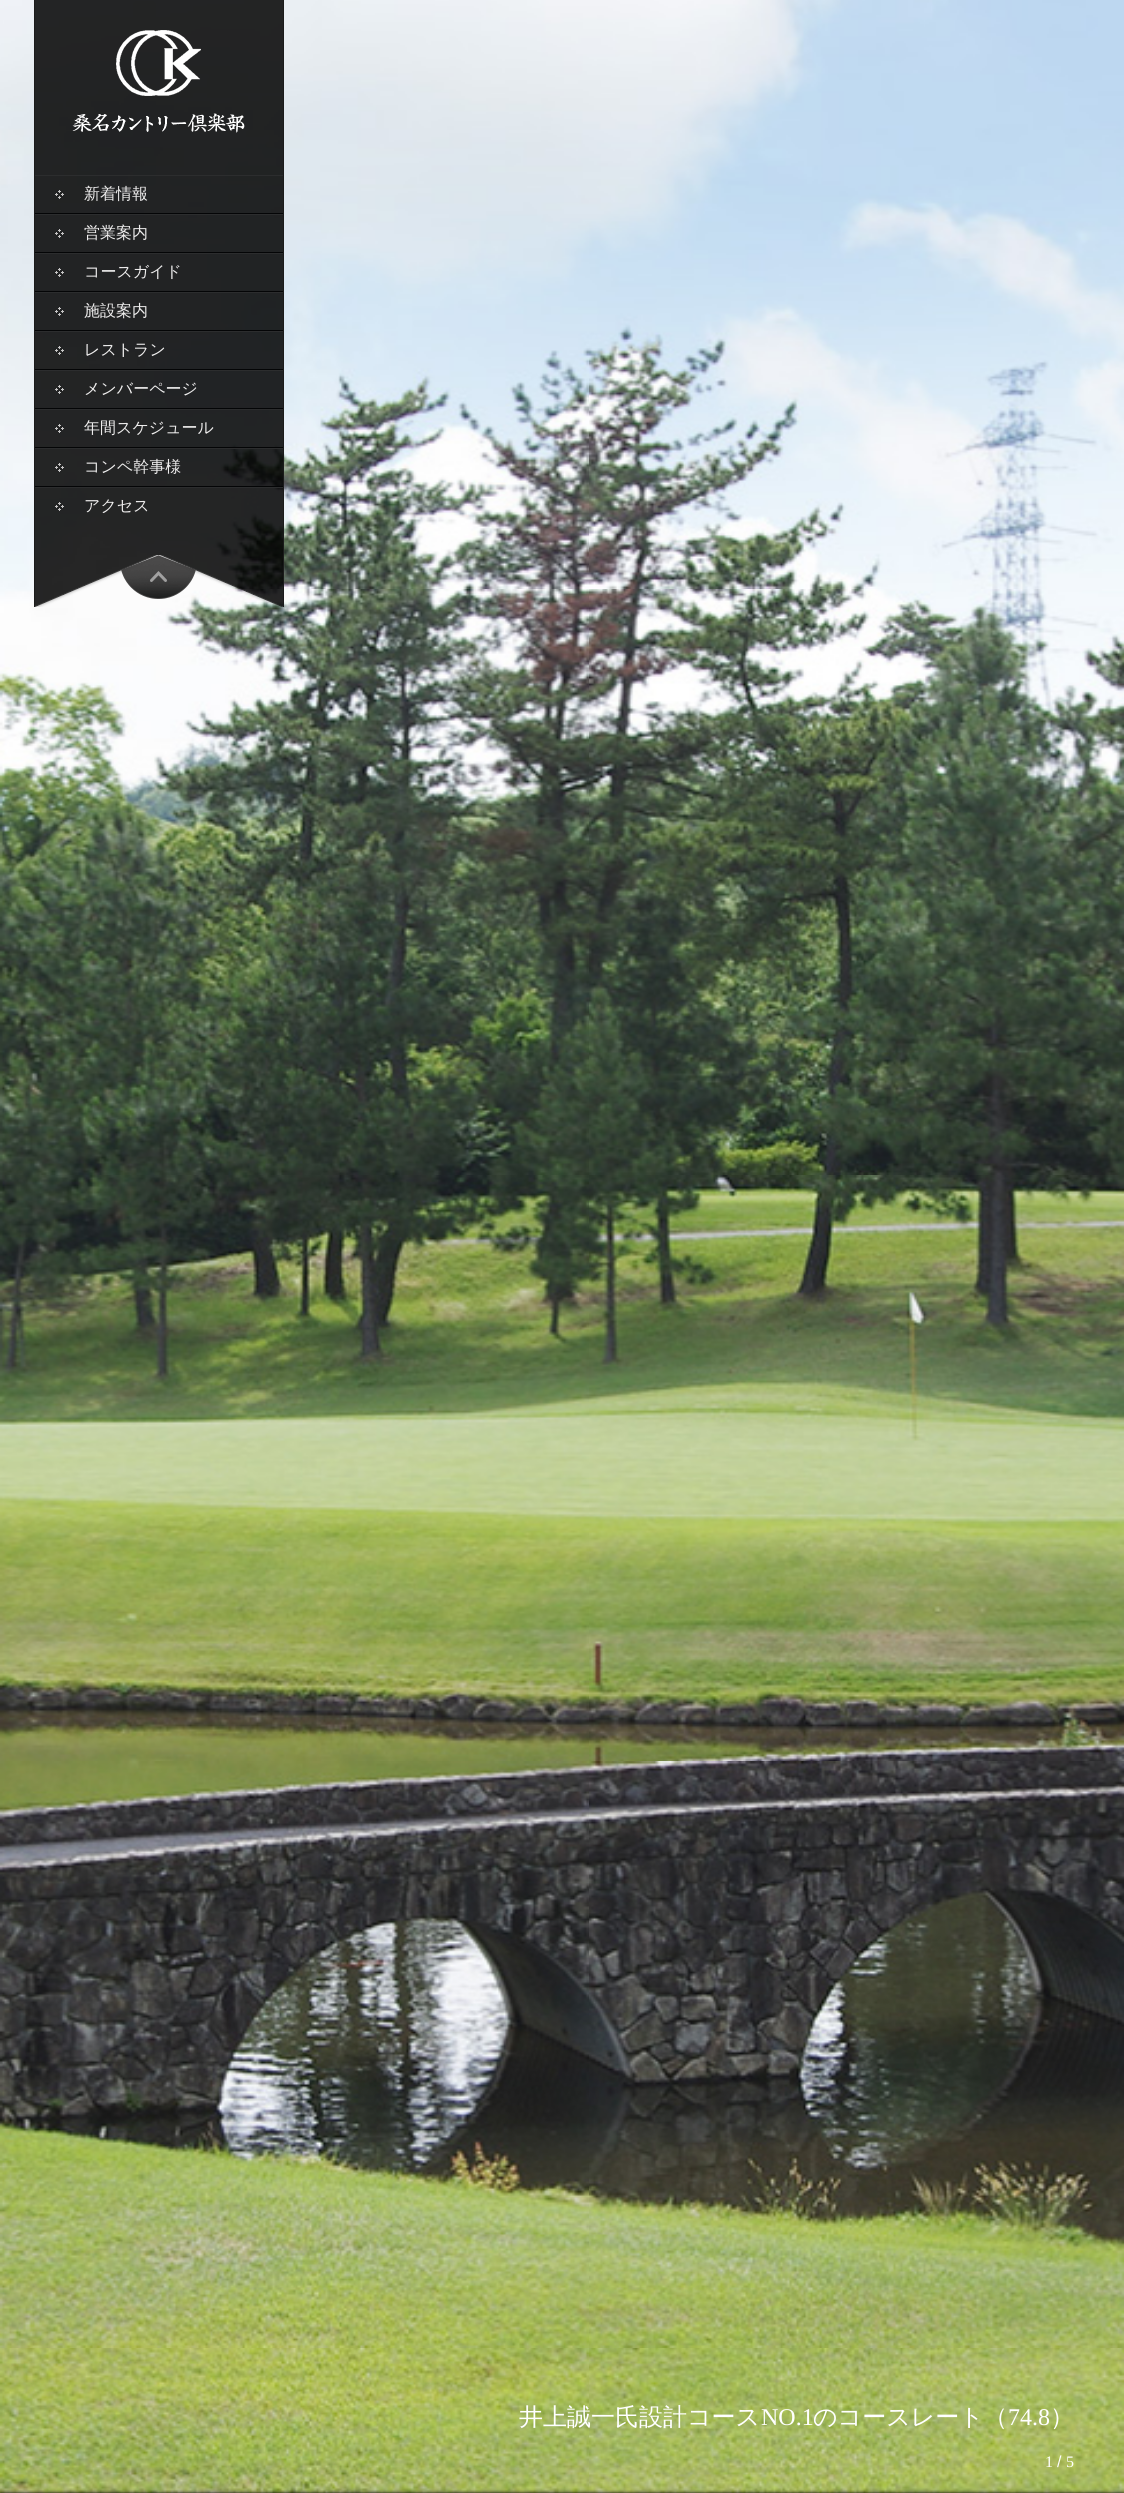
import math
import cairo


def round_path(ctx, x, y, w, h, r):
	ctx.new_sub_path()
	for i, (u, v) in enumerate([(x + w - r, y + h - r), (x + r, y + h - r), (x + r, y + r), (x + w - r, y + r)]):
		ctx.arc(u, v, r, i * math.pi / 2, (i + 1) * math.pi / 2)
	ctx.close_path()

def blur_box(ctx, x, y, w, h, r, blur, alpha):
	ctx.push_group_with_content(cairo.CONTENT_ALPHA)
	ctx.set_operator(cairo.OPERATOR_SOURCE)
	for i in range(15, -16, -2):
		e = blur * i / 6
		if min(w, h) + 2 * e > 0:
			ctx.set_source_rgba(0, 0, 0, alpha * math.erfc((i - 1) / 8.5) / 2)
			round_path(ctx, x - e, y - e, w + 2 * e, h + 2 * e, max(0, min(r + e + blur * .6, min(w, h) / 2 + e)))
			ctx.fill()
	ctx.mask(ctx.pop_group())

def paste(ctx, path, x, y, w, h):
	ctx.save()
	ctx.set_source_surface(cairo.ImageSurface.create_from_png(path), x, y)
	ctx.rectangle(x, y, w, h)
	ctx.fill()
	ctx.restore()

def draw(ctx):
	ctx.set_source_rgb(1, 1, 1)
	ctx.paint()
	paste(ctx, 'media/1.png', 0, 0, 1124, 2493)
	ctx.set_source_rgb(0.106, 0.106, 0.106)
	ctx.rectangle(283, 0, 1, 607)
	ctx.rectangle(34, 0, 1, 607)
	ctx.fill()
	ctx.set_source_rgba(0, 0, 0, 0.85)
	ctx.rectangle(35, 0, 248, 175)
	ctx.fill()
	paste(ctx, 'media/2.png', 72, 30, 173, 103)
	ctx.rectangle(35, 176, 248, 379)
	ctx.fill()
	ctx.set_source_rgb(0.173, 0.176, 0.18)
	ctx.rectangle(35, 175, 248, 1)
	ctx.fill()
	ctx.set_source_rgb(0.016, 0.02, 0.024)
	ctx.rectangle(35, 213, 248, 1)
	ctx.fill()
	paste(ctx, 'media/3.png', 55, 190, 9, 9)
	ctx.select_font_face('WenQuanYi Zen Hei Medium')
	ctx.set_font_size(16)
	ctx.set_source_rgb(0.933, 0.929, 0.929)
	ctx.move_to(84, 199)
	ctx.show_text('新着情報')
	ctx.set_source_rgb(0.173, 0.176, 0.18)
	ctx.rectangle(35, 214, 248, 1)
	ctx.fill()
	ctx.set_source_rgb(0.016, 0.02, 0.024)
	ctx.rectangle(35, 252, 248, 1)
	ctx.fill()
	paste(ctx, 'media/3.png', 55, 229, 9, 9)
	ctx.set_source_rgb(0.933, 0.929, 0.929)
	ctx.move_to(84, 238)
	ctx.show_text('営業案内')
	ctx.set_source_rgb(0.173, 0.176, 0.18)
	ctx.rectangle(35, 253, 248, 1)
	ctx.fill()
	ctx.set_source_rgb(0.016, 0.02, 0.024)
	ctx.rectangle(35, 291, 248, 1)
	ctx.fill()
	paste(ctx, 'media/3.png', 55, 268, 9, 9)
	ctx.set_source_rgb(0.933, 0.929, 0.929)
	ctx.move_to(84, 277)
	ctx.show_text('コースガイド')
	ctx.set_source_rgb(0.173, 0.176, 0.18)
	ctx.rectangle(35, 292, 248, 1)
	ctx.fill()
	ctx.set_source_rgb(0.016, 0.02, 0.024)
	ctx.rectangle(35, 330, 248, 1)
	ctx.fill()
	paste(ctx, 'media/4.png', 55, 307, 9, 9)
	ctx.set_source_rgb(0.933, 0.929, 0.929)
	ctx.move_to(84, 316)
	ctx.show_text('施設案内')
	ctx.set_source_rgb(0.173, 0.176, 0.18)
	ctx.rectangle(35, 331, 248, 1)
	ctx.fill()
	ctx.set_source_rgb(0.016, 0.02, 0.024)
	ctx.rectangle(35, 369, 248, 1)
	ctx.fill()
	paste(ctx, 'media/5.png', 55, 346, 9, 9)
	ctx.set_source_rgb(0.933, 0.929, 0.929)
	ctx.move_to(84, 355)
	ctx.show_text('レストラン')
	ctx.set_source_rgb(0.173, 0.176, 0.18)
	ctx.rectangle(35, 370, 248, 1)
	ctx.fill()
	ctx.set_source_rgb(0.016, 0.02, 0.024)
	ctx.rectangle(35, 408, 248, 1)
	ctx.fill()
	paste(ctx, 'media/6.png', 55, 385, 9, 9)
	ctx.set_source_rgb(0.933, 0.929, 0.929)
	ctx.move_to(84, 394)
	ctx.show_text('メンバーページ')
	ctx.set_source_rgb(0.173, 0.176, 0.18)
	ctx.rectangle(35, 409, 248, 1)
	ctx.fill()
	ctx.set_source_rgb(0.016, 0.02, 0.024)
	ctx.rectangle(35, 447, 248, 1)
	ctx.fill()
	paste(ctx, 'media/7.png', 55, 424, 9, 9)
	ctx.set_source_rgb(0.933, 0.929, 0.929)
	ctx.move_to(84, 433)
	ctx.show_text('年間スケジュール')
	ctx.set_source_rgb(0.173, 0.176, 0.18)
	ctx.rectangle(35, 448, 248, 1)
	ctx.fill()
	ctx.set_source_rgb(0.016, 0.02, 0.024)
	ctx.rectangle(35, 486, 248, 1)
	ctx.fill()
	paste(ctx, 'media/8.png', 55, 463, 9, 9)
	ctx.set_source_rgb(0.933, 0.929, 0.929)
	ctx.move_to(84, 472)
	ctx.show_text('コンペ幹事様')
	ctx.set_source_rgb(0.173, 0.176, 0.18)
	ctx.rectangle(35, 487, 248, 1)
	ctx.fill()
	paste(ctx, 'media/9.png', 55, 502, 9, 9)
	ctx.set_source_rgb(0.933, 0.929, 0.929)
	ctx.move_to(84, 511)
	ctx.show_text('アクセス')
	paste(ctx, 'media/10.png', 35, 555, 248, 52)
	paste(ctx, 'media/11.png', 121, 555, 75, 44)
	ctx.set_font_size(24)
	ctx.set_source_rgb(1, 1, 1)
	ctx.move_to(519, 2425)
	ctx.show_text('井上誠一氏設計コース')
	ctx.select_font_face('Liberation Serif')
	ctx.move_to(761, 2425)
	ctx.show_text('NO.1')
	ctx.select_font_face('WenQuanYi Zen Hei Medium')
	ctx.move_to(813, 2425)
	ctx.show_text('のコースレート（')
	ctx.select_font_face('Liberation Serif')
	ctx.move_to(1008, 2425)
	ctx.show_text('74.8')
	ctx.select_font_face('WenQuanYi Zen Hei Medium')
	ctx.move_to(1050, 2425)
	ctx.show_text('）')
	ctx.select_font_face('Liberation Serif')
	ctx.set_font_size(16)
	ctx.move_to(1045, 2467)
	ctx.show_text('1')
	ctx.select_font_face('Liberation Sans')
	ctx.move_to(1057, 2467)
	ctx.show_text('/')
	ctx.select_font_face('Liberation Serif')
	ctx.move_to(1066, 2467)
	ctx.show_text('5')
	ctx.set_source_rgb(0, 0, 0)
	blur_box(ctx, 0, 2493, 1124, 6, 0, 2, 1)


surface = cairo.ImageSurface(cairo.FORMAT_RGB24, 1124, 2493)
ctx = cairo.Context(surface)
options = cairo.FontOptions()
options.set_hint_metrics(cairo.HINT_METRICS_OFF)
options.set_hint_style(cairo.HINT_STYLE_NONE)
ctx.set_font_options(options)
ctx.set_miter_limit(4)
draw(ctx)
surface.write_to_png('image.png')
